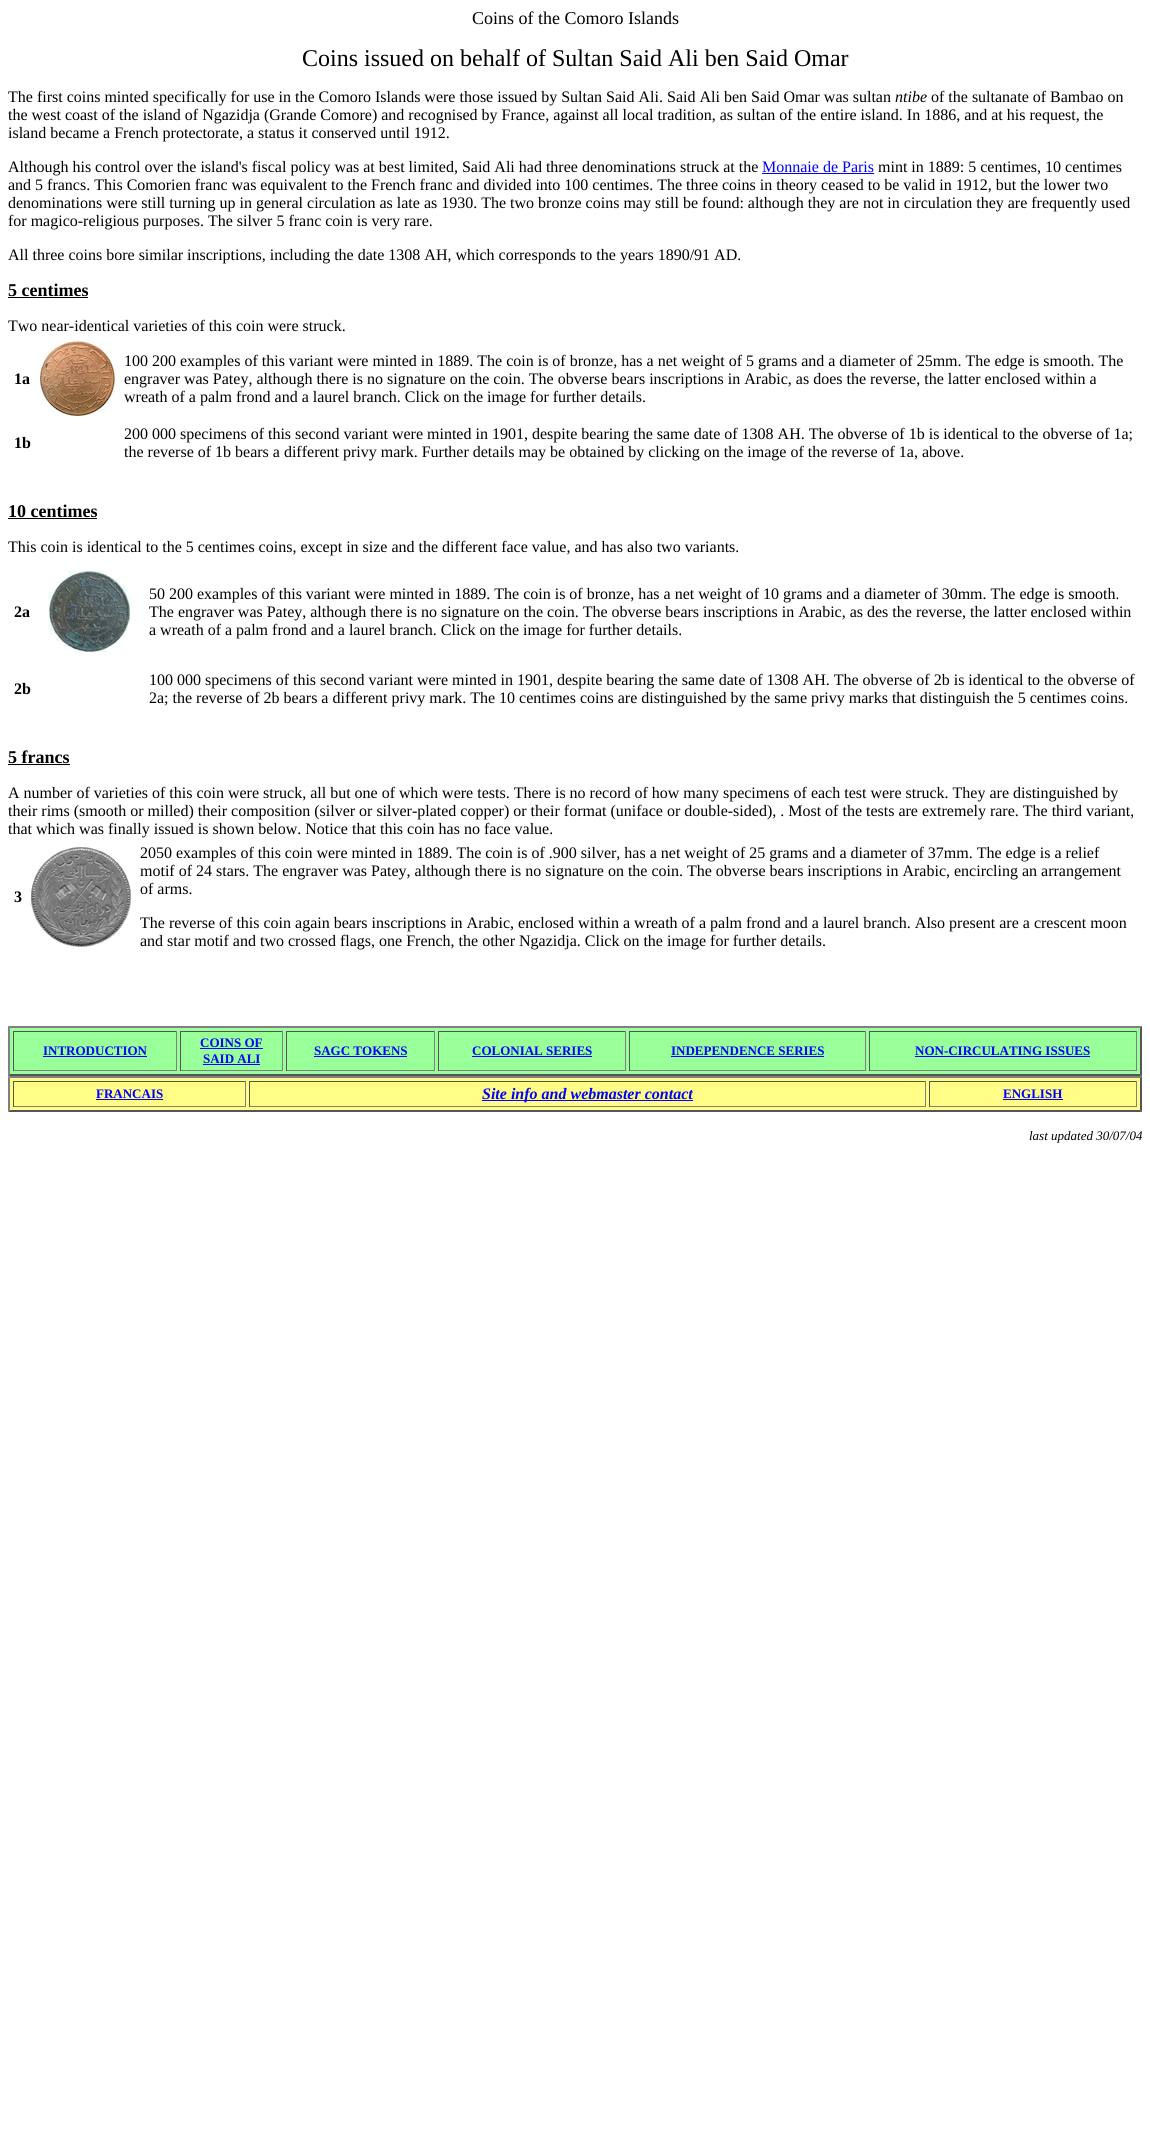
import math
import cairo


def paste(ctx, path, x, y, w, h):
	ctx.save()
	ctx.set_source_surface(cairo.ImageSurface.create_from_png(path), x, y)
	ctx.rectangle(x, y, w, h)
	ctx.fill()
	ctx.restore()

def draw(ctx):
	ctx.set_source_rgb(1, 1, 1)
	ctx.paint()
	ctx.select_font_face('Liberation Serif')
	ctx.set_font_size(18)
	ctx.set_source_rgb(0, 0, 0)
	ctx.move_to(472, 24)
	ctx.show_text('Coins of the Comoro Islands')
	ctx.set_font_size(24)
	ctx.move_to(302, 66)
	ctx.show_text('Coins issued on behalf of Sultan Said Ali ben Said Omar')
	ctx.set_font_size(16)
	ctx.move_to(8, 102)
	ctx.show_text('The first coins minted specifically for use in the Comoro Islands were those issued by Sultan Said Ali. Said Ali ben Said Omar was sultan')
	ctx.select_font_face('Liberation Serif', cairo.FONT_SLANT_ITALIC)
	ctx.move_to(895, 102)
	ctx.show_text('ntibe')
	ctx.select_font_face('Liberation Serif')
	for x, y, s in [
		(931, 102, 'of the sultanate of Bambao on'),
		(8, 120, 'the west coast of the island of Ngazidja (Grande Comore) and recognised by France, against all local tradition, as sultan of the entire island. In 1886, and at his request, the'),
		(8, 138, 'island became a French protectorate, a status it conserved until 1912.'),
		(8, 172, 'Although his control over the island\'s fiscal policy was at best limited, Said Ali had three denominations struck at the'),
	]:
		ctx.move_to(x, y)
		ctx.show_text(s)
	ctx.set_source_rgb(0, 0, 1)
	ctx.move_to(762, 172)
	ctx.show_text('Monnaie de Paris')
	ctx.rectangle(762, 173, 112, 1)
	ctx.fill()
	ctx.set_source_rgb(0, 0, 0)
	for x, y, s in [
		(878, 172, 'mint in 1889: 5 centimes, 10 centimes'),
		(8, 190, 'and 5 francs. This Comorien franc was equivalent to the French franc and divided into 100 centimes. The three coins in theory ceased to be valid in 1912, but the lower two'),
		(8, 208, 'denominations were still turning up in general circulation as late as 1930. The two bronze coins may still be found: although they are not in circulation they are frequently used'),
		(8, 226, 'for magico-religious purposes. The silver 5 franc coin is very rare.'),
		(8, 260, 'All three coins bore similar inscriptions, including the date 1308 AH, which corresponds to the years 1890/91 AD.'),
	]:
		ctx.move_to(x, y)
		ctx.show_text(s)
	ctx.select_font_face('Liberation Serif', cairo.FONT_SLANT_NORMAL, cairo.FONT_WEIGHT_BOLD)
	ctx.set_font_size(18)
	ctx.move_to(8, 296)
	ctx.show_text('5 centimes')
	ctx.rectangle(8, 297, 80, 1)
	ctx.fill()
	ctx.select_font_face('Liberation Serif')
	ctx.set_font_size(16)
	ctx.move_to(8, 331)
	ctx.show_text('Two near-identical varieties of this coin were struck.')
	ctx.select_font_face('Liberation Serif', cairo.FONT_SLANT_NORMAL, cairo.FONT_WEIGHT_BOLD)
	ctx.move_to(14, 384)
	ctx.show_text('1a')
	paste(ctx, 'media/1.png', 40, 341, 75, 75)
	ctx.select_font_face('Liberation Serif')
	for x, y, s in [
		(124, 366, '100 200 examples of this variant were minted in 1889. The coin is of bronze, has a net weight of 5 grams and a diameter of 25mm. The edge is smooth. The'),
		(124, 384, 'engraver was Patey, although there is no signature on the coin. The obverse bears inscriptions in Arabic, as does the reverse, the latter enclosed within a'),
		(124, 402, 'wreath of a palm frond and a laurel branch. Click on the image for further details.'),
	]:
		ctx.move_to(x, y)
		ctx.show_text(s)
	ctx.select_font_face('Liberation Serif', cairo.FONT_SLANT_NORMAL, cairo.FONT_WEIGHT_BOLD)
	ctx.move_to(14, 448)
	ctx.show_text('1b')
	ctx.select_font_face('Liberation Serif')
	ctx.move_to(124, 439)
	ctx.show_text('200 000 specimens of this second variant were minted in 1901, despite bearing the same date of 1308 AH. The obverse of 1b is identical to the obverse of 1a;')
	ctx.move_to(124, 457)
	ctx.show_text('the reverse of 1b bears a different privy mark. Further details may be obtained by clicking on the image of the reverse of 1a, above.')
	ctx.select_font_face('Liberation Serif', cairo.FONT_SLANT_NORMAL, cairo.FONT_WEIGHT_BOLD)
	ctx.set_font_size(18)
	ctx.move_to(8, 517)
	ctx.show_text('10 centimes')
	ctx.rectangle(8, 518, 89, 1)
	ctx.fill()
	ctx.select_font_face('Liberation Serif')
	ctx.set_font_size(16)
	ctx.move_to(8, 552)
	ctx.show_text('This coin is identical to the 5 centimes coins, except in size and the different face value, and has also two variants.')
	ctx.select_font_face('Liberation Serif', cairo.FONT_SLANT_NORMAL, cairo.FONT_WEIGHT_BOLD)
	ctx.move_to(14, 617)
	ctx.show_text('2a')
	paste(ctx, 'media/2.png', 48, 570, 86, 88)
	ctx.select_font_face('Liberation Serif')
	for x, y, s in [
		(149, 599, '50 200 examples of this variant were minted in 1889. The coin is of bronze, has a net weight of 10 grams and a diameter of 30mm. The edge is smooth.'),
		(149, 617, 'The engraver was Patey, although there is no signature on the coin. The obverse bears inscriptions in Arabic, as des the reverse, the latter enclosed within'),
		(149, 635, 'a wreath of a palm frond and a laurel branch. Click on the image for further details.'),
	]:
		ctx.move_to(x, y)
		ctx.show_text(s)
	ctx.select_font_face('Liberation Serif', cairo.FONT_SLANT_NORMAL, cairo.FONT_WEIGHT_BOLD)
	ctx.move_to(14, 694)
	ctx.show_text('2b')
	ctx.select_font_face('Liberation Serif')
	ctx.move_to(149, 685)
	ctx.show_text('100 000 specimens of this second variant were minted in 1901, despite bearing the same date of 1308 AH. The obverse of 2b is identical to the obverse of')
	ctx.move_to(149, 703)
	ctx.show_text('2a; the reverse of 2b bears a different privy mark. The 10 centimes coins are distinguished by the same privy marks that distinguish the 5 centimes coins.')
	ctx.select_font_face('Liberation Serif', cairo.FONT_SLANT_NORMAL, cairo.FONT_WEIGHT_BOLD)
	ctx.set_font_size(18)
	ctx.move_to(8, 763)
	ctx.show_text('5 francs')
	ctx.rectangle(8, 764, 62, 1)
	ctx.fill()
	ctx.select_font_face('Liberation Serif')
	ctx.set_font_size(16)
	for x, y, s in [
		(8, 798, 'A number of varieties of this coin were struck, all but one of which were tests. There is no record of how many specimens of each test were struck. They are distinguished by'),
		(8, 816, 'their rims (smooth or milled) their composition (silver or silver-plated copper) or their format (uniface or double-sided), . Most of the tests are extremely rare. The third variant,'),
		(8, 834, 'that which was finally issued is shown below. Notice that this coin has no face value.'),
	]:
		ctx.move_to(x, y)
		ctx.show_text(s)
	ctx.select_font_face('Liberation Serif', cairo.FONT_SLANT_NORMAL, cairo.FONT_WEIGHT_BOLD)
	ctx.move_to(14, 902)
	ctx.show_text('3')
	paste(ctx, 'media/3.png', 31, 847, 100, 100)
	ctx.select_font_face('Liberation Serif')
	for x, y, s in [
		(140, 858, '2050 examples of this coin were minted in 1889. The coin is of .900 silver, has a net weight of 25 grams and a diameter of 37mm. The edge is a relief'),
		(140, 876, 'motif of 24 stars. The engraver was Patey, although there is no signature on the coin. The obverse bears inscriptions in Arabic, encircling an arrangement'),
		(140, 894, 'of arms.'),
		(140, 928, 'The reverse of this coin again bears inscriptions in Arabic, enclosed within a wreath of a palm frond and a laurel branch. Also present are a crescent moon'),
		(140, 946, 'and star motif and two crossed flags, one French, the other Ngazidja. Click on the image for further details.'),
	]:
		ctx.move_to(x, y)
		ctx.show_text(s)
	ctx.set_source_rgb(0.6, 1, 0.6)
	ctx.rectangle(8, 1026, 1134, 50)
	ctx.fill()
	ctx.set_source_rgb(0.502, 0.502, 0.502)
	ctx.new_path()
	ctx.move_to(8, 1026)
	ctx.line_to(1142, 1026)
	ctx.line_to(1140, 1028)
	ctx.line_to(10, 1028)
	ctx.close_path()
	ctx.fill()
	ctx.set_source_rgb(0.333, 0.333, 0.333)
	ctx.new_path()
	ctx.move_to(1142, 1026)
	ctx.line_to(1142, 1076)
	ctx.line_to(1140, 1074)
	ctx.line_to(1140, 1028)
	ctx.close_path()
	ctx.fill()
	ctx.new_path()
	ctx.move_to(1142, 1076)
	ctx.line_to(8, 1076)
	ctx.line_to(10, 1074)
	ctx.line_to(1140, 1074)
	ctx.close_path()
	ctx.fill()
	ctx.set_source_rgb(0.502, 0.502, 0.502)
	ctx.new_path()
	ctx.move_to(8, 1076)
	ctx.line_to(8, 1026)
	ctx.line_to(10, 1028)
	ctx.line_to(10, 1074)
	ctx.close_path()
	ctx.fill()
	ctx.set_source_rgb(0.333, 0.333, 0.333)
	ctx.rectangle(13, 1031, 164, 1)
	ctx.fill()
	ctx.set_source_rgb(0.502, 0.502, 0.502)
	ctx.rectangle(176, 1031, 1, 40)
	ctx.rectangle(13, 1070, 164, 1)
	ctx.fill()
	ctx.set_source_rgb(0.333, 0.333, 0.333)
	ctx.rectangle(13, 1031, 1, 40)
	ctx.fill()
	ctx.select_font_face('Liberation Serif', cairo.FONT_SLANT_NORMAL, cairo.FONT_WEIGHT_BOLD)
	ctx.set_font_size(13)
	ctx.set_source_rgb(0, 0, 1)
	ctx.move_to(43, 1055)
	ctx.show_text('INTRODUCTION')
	ctx.rectangle(43, 1056, 104, 1)
	ctx.fill()
	ctx.set_source_rgb(0.333, 0.333, 0.333)
	ctx.rectangle(180, 1031, 103, 1)
	ctx.fill()
	ctx.set_source_rgb(0.502, 0.502, 0.502)
	ctx.rectangle(282, 1031, 1, 40)
	ctx.rectangle(180, 1070, 103, 1)
	ctx.fill()
	ctx.set_source_rgb(0.333, 0.333, 0.333)
	ctx.rectangle(180, 1031, 1, 40)
	ctx.fill()
	ctx.set_source_rgb(0, 0, 1)
	ctx.move_to(200, 1047)
	ctx.show_text('COINS OF')
	ctx.rectangle(200, 1048, 63, 1)
	ctx.fill()
	ctx.move_to(203, 1063)
	ctx.show_text('SAID ALI')
	ctx.rectangle(203, 1064, 57, 1)
	ctx.fill()
	ctx.set_source_rgb(0.333, 0.333, 0.333)
	ctx.rectangle(286, 1031, 149, 1)
	ctx.fill()
	ctx.set_source_rgb(0.502, 0.502, 0.502)
	ctx.rectangle(434, 1031, 1, 40)
	ctx.rectangle(286, 1070, 149, 1)
	ctx.fill()
	ctx.set_source_rgb(0.333, 0.333, 0.333)
	ctx.rectangle(286, 1031, 1, 40)
	ctx.fill()
	ctx.set_source_rgb(0, 0, 1)
	ctx.move_to(314, 1055)
	ctx.show_text('SAGC TOKENS')
	ctx.rectangle(314, 1056, 93, 1)
	ctx.fill()
	ctx.set_source_rgb(0.333, 0.333, 0.333)
	ctx.rectangle(438, 1031, 188, 1)
	ctx.fill()
	ctx.set_source_rgb(0.502, 0.502, 0.502)
	ctx.rectangle(625, 1031, 1, 40)
	ctx.rectangle(438, 1070, 188, 1)
	ctx.fill()
	ctx.set_source_rgb(0.333, 0.333, 0.333)
	ctx.rectangle(438, 1031, 1, 40)
	ctx.fill()
	ctx.set_source_rgb(0, 0, 1)
	ctx.move_to(472, 1055)
	ctx.show_text('COLONIAL SERIES')
	ctx.rectangle(472, 1056, 120, 1)
	ctx.fill()
	ctx.set_source_rgb(0.333, 0.333, 0.333)
	ctx.rectangle(629, 1031, 237, 1)
	ctx.fill()
	ctx.set_source_rgb(0.502, 0.502, 0.502)
	ctx.rectangle(865, 1031, 1, 40)
	ctx.rectangle(629, 1070, 237, 1)
	ctx.fill()
	ctx.set_source_rgb(0.333, 0.333, 0.333)
	ctx.rectangle(629, 1031, 1, 40)
	ctx.fill()
	ctx.set_source_rgb(0, 0, 1)
	ctx.move_to(671, 1055)
	ctx.show_text('INDEPENDENCE SERIES')
	ctx.rectangle(671, 1056, 153, 1)
	ctx.fill()
	ctx.set_source_rgb(0.333, 0.333, 0.333)
	ctx.rectangle(869, 1031, 268, 1)
	ctx.fill()
	ctx.set_source_rgb(0.502, 0.502, 0.502)
	ctx.rectangle(1136, 1031, 1, 40)
	ctx.rectangle(869, 1070, 268, 1)
	ctx.fill()
	ctx.set_source_rgb(0.333, 0.333, 0.333)
	ctx.rectangle(869, 1031, 1, 40)
	ctx.fill()
	ctx.set_source_rgb(0, 0, 1)
	ctx.move_to(915, 1055)
	ctx.show_text('NON-CIRCULATING ISSUES')
	ctx.rectangle(915, 1056, 175, 1)
	ctx.fill()
	ctx.set_source_rgb(1, 0.992, 0.522)
	ctx.rectangle(8, 1076, 1134, 36)
	ctx.fill()
	ctx.set_source_rgb(0.502, 0.502, 0.502)
	ctx.new_path()
	ctx.move_to(8, 1076)
	ctx.line_to(1142, 1076)
	ctx.line_to(1140, 1078)
	ctx.line_to(10, 1078)
	ctx.close_path()
	ctx.fill()
	ctx.set_source_rgb(0.333, 0.333, 0.333)
	ctx.new_path()
	ctx.move_to(1142, 1076)
	ctx.line_to(1142, 1112)
	ctx.line_to(1140, 1110)
	ctx.line_to(1140, 1078)
	ctx.close_path()
	ctx.fill()
	ctx.new_path()
	ctx.move_to(1142, 1112)
	ctx.line_to(8, 1112)
	ctx.line_to(10, 1110)
	ctx.line_to(1140, 1110)
	ctx.close_path()
	ctx.fill()
	ctx.set_source_rgb(0.502, 0.502, 0.502)
	ctx.new_path()
	ctx.move_to(8, 1112)
	ctx.line_to(8, 1076)
	ctx.line_to(10, 1078)
	ctx.line_to(10, 1110)
	ctx.close_path()
	ctx.fill()
	ctx.set_source_rgb(0.333, 0.333, 0.333)
	ctx.rectangle(13, 1081, 233, 1)
	ctx.fill()
	ctx.set_source_rgb(0.502, 0.502, 0.502)
	ctx.rectangle(245, 1081, 1, 26)
	ctx.rectangle(13, 1106, 233, 1)
	ctx.fill()
	ctx.set_source_rgb(0.333, 0.333, 0.333)
	ctx.rectangle(13, 1081, 1, 26)
	ctx.fill()
	ctx.set_source_rgb(0, 0, 1)
	ctx.move_to(96, 1098)
	ctx.show_text('FRANCAIS')
	ctx.rectangle(96, 1099, 67, 1)
	ctx.fill()
	ctx.set_source_rgb(0.333, 0.333, 0.333)
	ctx.rectangle(249, 1081, 677, 1)
	ctx.fill()
	ctx.set_source_rgb(0.502, 0.502, 0.502)
	ctx.rectangle(925, 1081, 1, 26)
	ctx.rectangle(249, 1106, 677, 1)
	ctx.fill()
	ctx.set_source_rgb(0.333, 0.333, 0.333)
	ctx.rectangle(249, 1081, 1, 26)
	ctx.fill()
	ctx.set_source_rgb(0, 0, 1)
	ctx.rectangle(482, 1100, 211, 1)
	ctx.fill()
	ctx.select_font_face('Liberation Serif', cairo.FONT_SLANT_ITALIC, cairo.FONT_WEIGHT_BOLD)
	ctx.set_font_size(16)
	ctx.move_to(482, 1099)
	ctx.show_text('Site info and webmaster contact')
	ctx.set_source_rgb(0.333, 0.333, 0.333)
	ctx.rectangle(929, 1081, 208, 1)
	ctx.fill()
	ctx.set_source_rgb(0.502, 0.502, 0.502)
	ctx.rectangle(1136, 1081, 1, 26)
	ctx.rectangle(929, 1106, 208, 1)
	ctx.fill()
	ctx.set_source_rgb(0.333, 0.333, 0.333)
	ctx.rectangle(929, 1081, 1, 26)
	ctx.fill()
	ctx.select_font_face('Liberation Serif', cairo.FONT_SLANT_NORMAL, cairo.FONT_WEIGHT_BOLD)
	ctx.set_font_size(13)
	ctx.set_source_rgb(0, 0, 1)
	ctx.move_to(1003, 1098)
	ctx.show_text('ENGLISH')
	ctx.rectangle(1003, 1099, 60, 1)
	ctx.fill()
	ctx.select_font_face('Liberation Serif', cairo.FONT_SLANT_ITALIC)
	ctx.set_source_rgb(0, 0, 0)
	ctx.move_to(1029, 1140)
	ctx.show_text('last updated 30/07/04')


surface = cairo.ImageSurface(cairo.FORMAT_RGB24, 1150, 2147)
ctx = cairo.Context(surface)
options = cairo.FontOptions()
options.set_hint_metrics(cairo.HINT_METRICS_OFF)
options.set_hint_style(cairo.HINT_STYLE_NONE)
ctx.set_font_options(options)
ctx.set_miter_limit(4)
draw(ctx)
surface.write_to_png('image.png')
